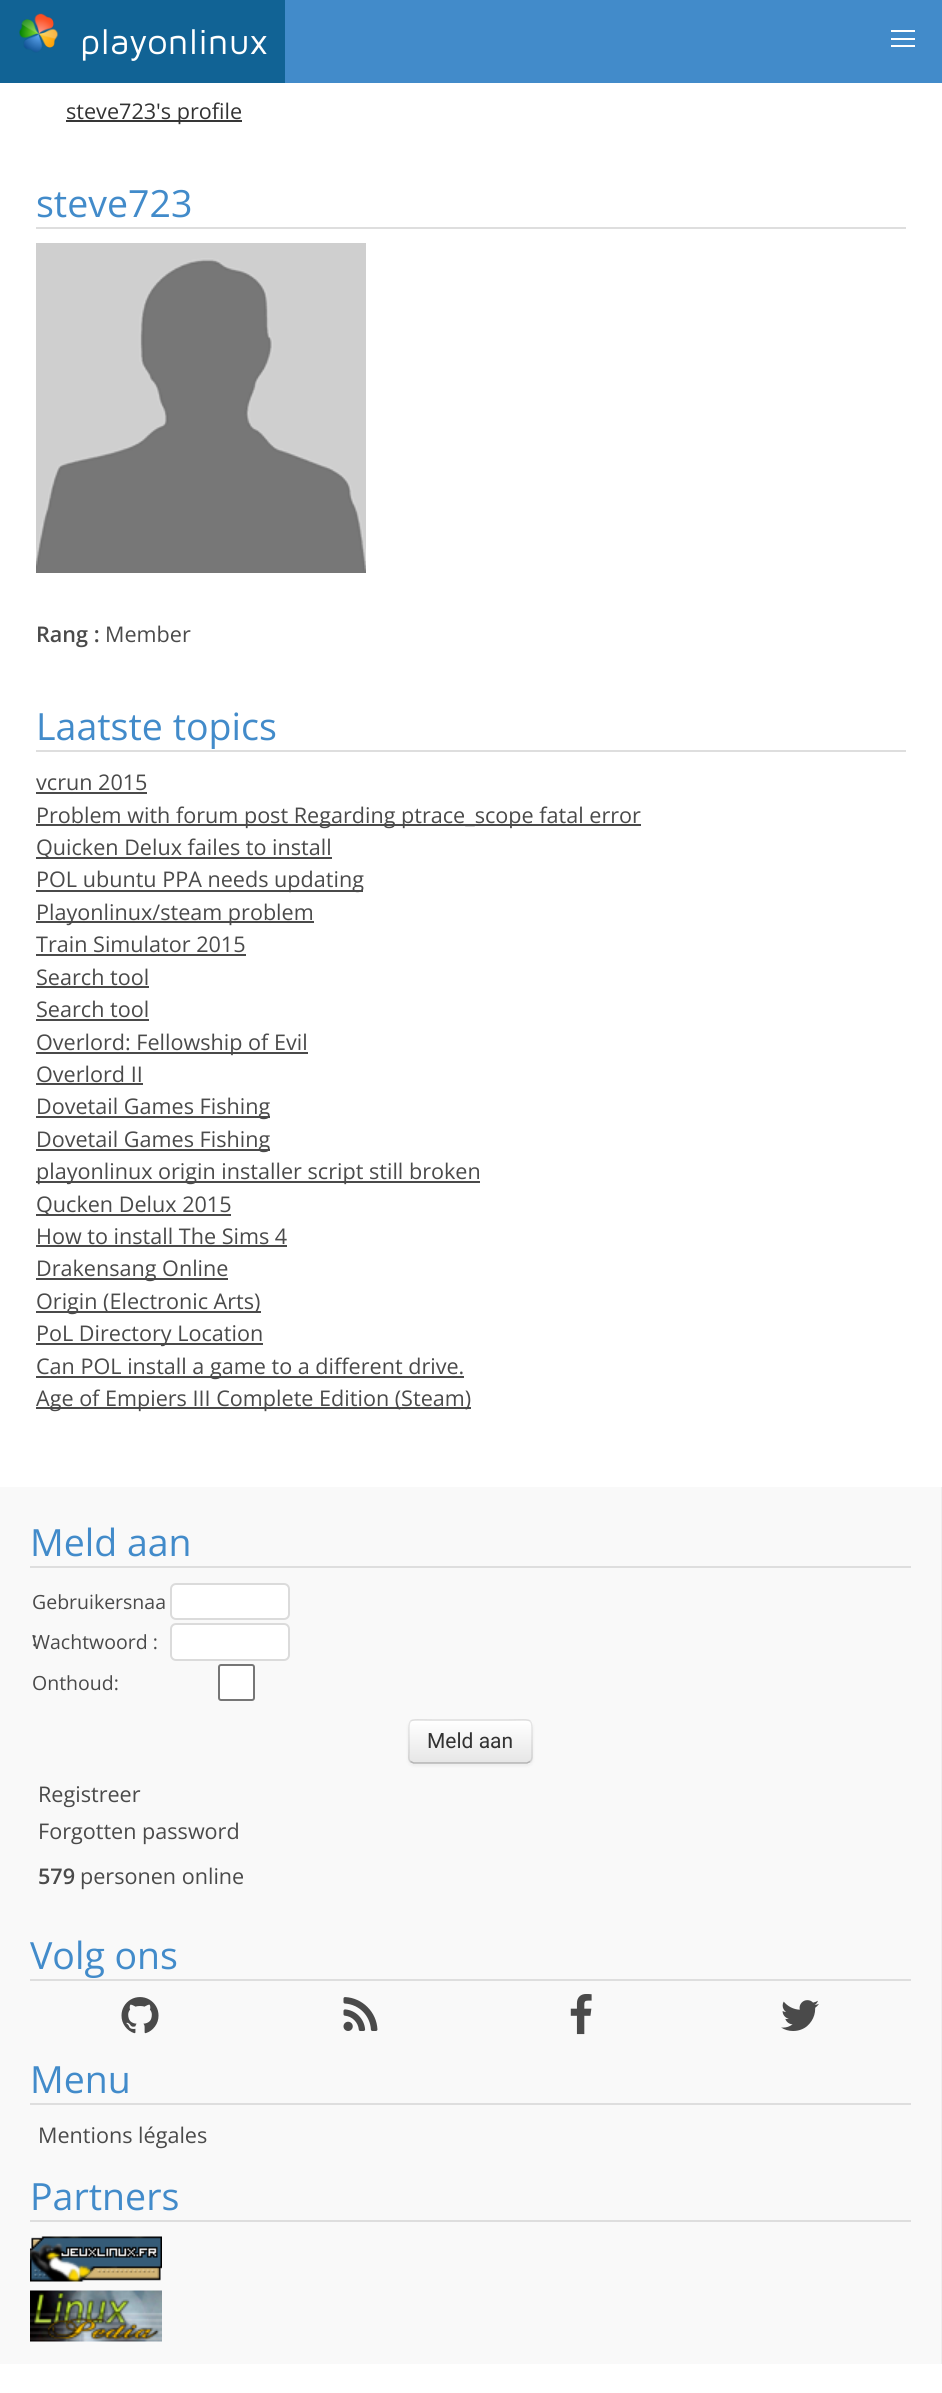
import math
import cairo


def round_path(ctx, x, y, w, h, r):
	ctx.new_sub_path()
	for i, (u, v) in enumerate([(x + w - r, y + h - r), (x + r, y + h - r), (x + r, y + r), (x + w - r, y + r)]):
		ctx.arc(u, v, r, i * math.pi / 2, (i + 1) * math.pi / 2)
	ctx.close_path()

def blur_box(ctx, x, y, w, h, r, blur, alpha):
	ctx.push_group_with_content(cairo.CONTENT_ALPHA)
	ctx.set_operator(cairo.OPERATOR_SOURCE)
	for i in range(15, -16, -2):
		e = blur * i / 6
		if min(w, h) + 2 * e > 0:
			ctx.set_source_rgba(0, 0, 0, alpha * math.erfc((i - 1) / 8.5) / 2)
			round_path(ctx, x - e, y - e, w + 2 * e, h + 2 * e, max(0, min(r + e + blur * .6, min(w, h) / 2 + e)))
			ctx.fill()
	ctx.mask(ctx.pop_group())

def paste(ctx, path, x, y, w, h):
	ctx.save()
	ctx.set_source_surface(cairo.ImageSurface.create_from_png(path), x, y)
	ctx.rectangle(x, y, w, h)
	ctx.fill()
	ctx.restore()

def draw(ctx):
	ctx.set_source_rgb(1, 1, 1)
	ctx.paint()
	ctx.set_source_rgb(0.259, 0.545, 0.792)
	ctx.rectangle(285, 0, 657, 83)
	ctx.fill()
	ctx.set_source_rgb(0.067, 0.388, 0.584)
	ctx.rectangle(0, 0, 285, 83)
	ctx.fill()
	paste(ctx, 'media/1.png', 19, 13, 40, 40)
	ctx.select_font_face('Maven Pro')
	ctx.set_font_size(36)
	ctx.set_source_rgb(1, 1, 1)
	ctx.move_to(80, 54)
	ctx.show_text('playonlinux')
	ctx.rectangle(891, 30, 24, 2)
	ctx.rectangle(891, 38, 24, 2)
	ctx.rectangle(891, 45, 24, 2)
	ctx.fill()
	ctx.set_source_rgb(0.212, 0.212, 0.212)
	ctx.rectangle(66, 120, 176, 2)
	ctx.fill()
	ctx.select_font_face('Open Sans')
	ctx.set_font_size(21.6)
	ctx.set_source_rgb(0.2, 0.2, 0.2)
	ctx.move_to(66, 119)
	ctx.show_text('steve723\'s profile')
	ctx.set_source_rgb(0.871, 0.871, 0.871)
	ctx.rectangle(36, 227, 870, 2)
	ctx.fill()
	ctx.set_font_size(37.5)
	ctx.set_source_rgb(0.259, 0.545, 0.792)
	ctx.move_to(36, 217)
	ctx.show_text('steve723')
	paste(ctx, 'media/2.png', 36, 243, 330, 330)
	ctx.select_font_face('Open Sans SemiBold')
	ctx.set_font_size(21.6)
	ctx.set_source_rgb(0.29, 0.29, 0.29)
	ctx.move_to(36, 642)
	ctx.show_text('Rang :')
	ctx.select_font_face('Open Sans')
	ctx.move_to(105, 642)
	ctx.show_text('Member')
	ctx.set_source_rgb(0.871, 0.871, 0.871)
	ctx.rectangle(36, 750, 870, 2)
	ctx.fill()
	ctx.set_font_size(37.5)
	ctx.set_source_rgb(0.259, 0.545, 0.792)
	ctx.move_to(36, 740)
	ctx.show_text('Laatste topics')
	ctx.set_font_size(21.6)
	ctx.set_source_rgb(0.29, 0.29, 0.29)
	ctx.move_to(36, 790)
	ctx.show_text('vcrun 2015')
	ctx.rectangle(36, 792, 111, 2)
	ctx.fill()
	ctx.rectangle(36, 824, 605, 2)
	ctx.fill()
	ctx.move_to(36, 823)
	ctx.show_text('Problem with forum post Regarding ptrace_scope fatal error')
	ctx.rectangle(36, 857, 296, 2)
	ctx.fill()
	ctx.move_to(36, 855)
	ctx.show_text('Quicken Delux failes to install')
	ctx.rectangle(36, 890, 327, 2)
	ctx.fill()
	ctx.move_to(36, 887)
	ctx.show_text('POL ubuntu PPA needs updating')
	ctx.rectangle(36, 921, 278, 2)
	ctx.fill()
	ctx.move_to(36, 920)
	ctx.show_text('Playonlinux/steam problem')
	ctx.move_to(36, 952)
	ctx.show_text('Train Simulator 2015')
	ctx.rectangle(36, 954, 210, 2)
	ctx.fill()
	ctx.move_to(36, 985)
	ctx.show_text('Search tool')
	ctx.rectangle(36, 986, 113, 2)
	ctx.fill()
	ctx.move_to(36, 1017)
	ctx.show_text('Search tool')
	ctx.rectangle(36, 1019, 113, 2)
	ctx.fill()
	ctx.rectangle(36, 1052, 272, 2)
	ctx.fill()
	ctx.move_to(36, 1050)
	ctx.show_text('Overlord: Fellowship of Evil')
	ctx.move_to(36, 1082)
	ctx.show_text('Overlord II')
	ctx.rectangle(36, 1083, 107, 2)
	ctx.fill()
	ctx.rectangle(36, 1116, 234, 2)
	ctx.fill()
	ctx.move_to(36, 1114)
	ctx.show_text('Dovetail Games Fishing')
	ctx.rectangle(36, 1149, 234, 2)
	ctx.fill()
	ctx.move_to(36, 1147)
	ctx.show_text('Dovetail Games Fishing')
	ctx.rectangle(36, 1181, 444, 2)
	ctx.fill()
	ctx.move_to(36, 1179)
	ctx.show_text('playonlinux origin installer script still broken')
	ctx.rectangle(36, 1214, 195, 2)
	ctx.fill()
	ctx.move_to(36, 1212)
	ctx.show_text('Qucken Delux 2015')
	ctx.move_to(36, 1244)
	ctx.show_text('How to install The Sims 4')
	ctx.rectangle(36, 1245, 251, 2)
	ctx.fill()
	ctx.rectangle(36, 1278, 192, 2)
	ctx.fill()
	ctx.move_to(36, 1276)
	ctx.show_text('Drakensang Online')
	ctx.rectangle(36, 1311, 225, 2)
	ctx.fill()
	ctx.move_to(36, 1309)
	ctx.show_text('Origin (Electronic Arts)')
	ctx.rectangle(36, 1343, 227, 2)
	ctx.fill()
	ctx.move_to(36, 1341)
	ctx.show_text('PoL Directory Location')
	ctx.rectangle(36, 1376, 428, 2)
	ctx.fill()
	ctx.move_to(36, 1374)
	ctx.show_text('Can POL install a game to a different drive.')
	ctx.rectangle(36, 1407, 435, 2)
	ctx.fill()
	ctx.move_to(36, 1406)
	ctx.show_text('Age of Empiers III Complete Edition (Steam)')
	ctx.set_source_rgb(0.973, 0.973, 0.973)
	ctx.rectangle(0, 1487, 941, 877)
	ctx.fill()
	ctx.set_source_rgb(0.937, 0.937, 0.937)
	ctx.rectangle(941, 1487, 1, 877)
	ctx.fill()
	ctx.set_source_rgb(0.871, 0.871, 0.871)
	ctx.rectangle(30, 1566, 881, 2)
	ctx.fill()
	ctx.set_font_size(37.5)
	ctx.set_source_rgb(0.259, 0.545, 0.792)
	ctx.move_to(30, 1556)
	ctx.show_text('Meld aan')
	ctx.set_font_size(19.5)
	ctx.set_source_rgb(0.29, 0.29, 0.29)
	ctx.move_to(32, 1609)
	ctx.show_text('Gebruikersnaa')
	ctx.move_to(32, 1646)
	ctx.show_text(':')
	ctx.set_source_rgb(1, 1, 1)
	round_path(ctx, 171, 1584, 118, 35, 5)
	ctx.fill_preserve()
	ctx.set_source_rgb(0.859, 0.859, 0.859)
	ctx.stroke()
	ctx.set_source_rgb(0.29, 0.29, 0.29)
	ctx.move_to(32, 1649)
	ctx.show_text('Wachtwoord :')
	ctx.set_source_rgb(1, 1, 1)
	round_path(ctx, 171, 1624, 118, 36, 5)
	ctx.fill_preserve()
	ctx.set_source_rgb(0.859, 0.859, 0.859)
	ctx.stroke()
	ctx.set_source_rgb(0.29, 0.29, 0.29)
	ctx.move_to(32, 1690)
	ctx.show_text('Onthoud:')
	ctx.set_source_rgb(1, 1, 1)
	round_path(ctx, 219, 1665, 35, 35, 2)
	ctx.fill_preserve()
	ctx.set_source_rgb(0.463, 0.463, 0.463)
	ctx.stroke()
	ctx.set_source_rgb(0, 0, 0)
	blur_box(ctx, 408, 1721, 125, 45, 6, 1.5, 0.05)
	ctx.set_source_rgb(0.961, 0.961, 0.961)
	round_path(ctx, 408, 1719, 125, 45, 6)
	ctx.fill()
	ctx.save()
	round_path(ctx, 408, 1719, 125, 45, 6)
	ctx.clip()
	gradient = cairo.LinearGradient(470, 1721, 470, 1763)
	gradient.add_color_stop_rgba(0, 1, 1, 1, 1)
	gradient.add_color_stop_rgba(1, 0.902, 0.902, 0.902, 1)
	ctx.set_source(gradient)
	ctx.rectangle(408, 1721, 125, 42)
	ctx.fill()
	ctx.restore()
	ctx.new_path()
	ctx.move_to(530, 1761.5)
	ctx.line_to(527, 1763)
	ctx.line_to(413.5, 1763)
	ctx.line_to(410.5, 1761.5)
	ctx.set_source_rgb(0.702, 0.702, 0.702)
	ctx.set_line_width(1.5)
	ctx.stroke()
	ctx.new_path()
	ctx.move_to(410.5, 1761.5)
	ctx.curve_to(408, 1759.5, 409, 1755.5, 409, 1752.5)
	ctx.line_to(409, 1741.5)
	ctx.curve_to(409, 1716, 405.5, 1720, 433, 1720)
	ctx.line_to(508, 1720)
	ctx.curve_to(535, 1720, 532, 1716, 532, 1741.5)
	ctx.line_to(532, 1752.5)
	ctx.curve_to(532, 1755.5, 532.5, 1759.5, 530, 1761.5)
	ctx.set_source_rgba(0, 0, 0, 0.1)
	ctx.stroke()
	ctx.select_font_face('Roboto')
	ctx.set_font_size(21)
	ctx.set_source_rgb(0.2, 0.2, 0.2)
	ctx.move_to(427, 1748)
	ctx.show_text('Meld aan')
	ctx.select_font_face('Open Sans')
	ctx.set_font_size(21.6)
	ctx.set_source_rgb(0.29, 0.29, 0.29)
	ctx.move_to(38, 1802)
	ctx.show_text('Registreer')
	ctx.move_to(38, 1839)
	ctx.show_text('Forgotten password')
	ctx.select_font_face('Open Sans SemiBold')
	ctx.move_to(38, 1884)
	ctx.show_text('579')
	ctx.select_font_face('Open Sans')
	ctx.move_to(80, 1884)
	ctx.show_text('personen online')
	ctx.set_source_rgb(0.871, 0.871, 0.871)
	ctx.rectangle(30, 1979, 881, 2)
	ctx.fill()
	ctx.set_font_size(37.5)
	ctx.set_source_rgb(0.259, 0.545, 0.792)
	ctx.move_to(30, 1969)
	ctx.show_text('Volg ons')
	paste(ctx, 'media/3.png', 121, 1997, 38, 37)
	paste(ctx, 'media/4.png', 343, 1997, 35, 34)
	paste(ctx, 'media/5.png', 570, 1994, 22, 41)
	paste(ctx, 'media/6.png', 781, 2000, 38, 31)
	ctx.set_source_rgb(0.871, 0.871, 0.871)
	ctx.rectangle(30, 2103, 881, 2)
	ctx.fill()
	ctx.set_source_rgb(0.259, 0.545, 0.792)
	ctx.move_to(30, 2093)
	ctx.show_text('Menu')
	ctx.set_font_size(21.6)
	ctx.set_source_rgb(0.29, 0.29, 0.29)
	ctx.move_to(38, 2143)
	ctx.show_text('Mentions légales')
	ctx.set_source_rgb(0.871, 0.871, 0.871)
	ctx.rectangle(30, 2220, 881, 2)
	ctx.fill()
	ctx.set_font_size(37.5)
	ctx.set_source_rgb(0.259, 0.545, 0.792)
	ctx.move_to(30, 2210)
	ctx.show_text('Partners')
	paste(ctx, 'media/7.png', 30, 2236, 132, 46)
	paste(ctx, 'media/8.png', 30, 2290, 132, 52)


surface = cairo.ImageSurface(cairo.FORMAT_RGB24, 942, 2393)
ctx = cairo.Context(surface)
options = cairo.FontOptions()
options.set_hint_metrics(cairo.HINT_METRICS_OFF)
options.set_hint_style(cairo.HINT_STYLE_NONE)
ctx.set_font_options(options)
ctx.set_miter_limit(4)
draw(ctx)
surface.write_to_png('image.png')
